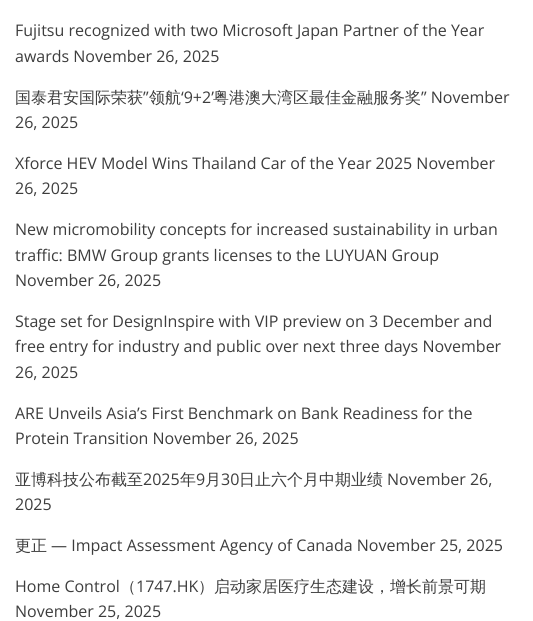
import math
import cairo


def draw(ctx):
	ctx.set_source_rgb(1, 1, 1)
	ctx.paint()
	ctx.select_font_face('Open Sans')
	ctx.set_font_size(16)
	ctx.set_source_rgb(0.239, 0.239, 0.239)
	ctx.move_to(15, 36)
	ctx.show_text('Fujitsu recognized with two Microsoft Japan Partner of the Year')
	ctx.move_to(15, 62)
	ctx.show_text('awards November 26, 2025')
	ctx.select_font_face('WenQuanYi Zen Hei Medium')
	ctx.move_to(15, 103)
	ctx.show_text('国泰君安国际荣获')
	ctx.select_font_face('Open Sans')
	ctx.move_to(143, 103)
	ctx.show_text('”')
	ctx.select_font_face('WenQuanYi Zen Hei Medium')
	ctx.move_to(149, 103)
	ctx.show_text('领航')
	ctx.select_font_face('Open Sans')
	ctx.move_to(181, 103)
	ctx.show_text('‘9+2’')
	ctx.select_font_face('WenQuanYi Zen Hei Medium')
	ctx.move_to(213, 103)
	ctx.show_text('粤港澳大湾区最佳金融服务奖')
	ctx.select_font_face('Open Sans')
	for x, y, s in [
		(421, 103, '” November'),
		(15, 128, '26, 2025'),
		(15, 169, 'Xforce HEV Model Wins Thailand Car of the Year 2025 November'),
		(15, 194, '26, 2025'),
		(15, 235, 'New micromobility concepts for increased sustainability in urban'),
		(15, 261, 'traffic: BMW Group grants licenses to the LUYUAN Group'),
		(15, 286, 'November 26, 2025'),
		(15, 327, 'Stage set for DesignInspire with VIP preview on 3 December and'),
		(15, 352, 'free entry for industry and public over next three days November'),
		(15, 378, '26, 2025'),
		(15, 419, 'ARE Unveils Asia’s First Benchmark on Bank Readiness for the'),
		(15, 444, 'Protein Transition November 26, 2025'),
	]:
		ctx.move_to(x, y)
		ctx.show_text(s)
	ctx.select_font_face('WenQuanYi Zen Hei Medium')
	ctx.move_to(15, 485)
	ctx.show_text('亚博科技公布截至')
	ctx.select_font_face('Open Sans')
	ctx.move_to(143, 485)
	ctx.show_text('2025')
	ctx.select_font_face('WenQuanYi Zen Hei Medium')
	ctx.move_to(180, 485)
	ctx.show_text('年')
	ctx.select_font_face('Open Sans')
	ctx.move_to(196, 485)
	ctx.show_text('9')
	ctx.select_font_face('WenQuanYi Zen Hei Medium')
	ctx.move_to(205, 485)
	ctx.show_text('月')
	ctx.select_font_face('Open Sans')
	ctx.move_to(221, 485)
	ctx.show_text('30')
	ctx.select_font_face('WenQuanYi Zen Hei Medium')
	ctx.move_to(239, 485)
	ctx.show_text('日止六个月中期业绩')
	ctx.select_font_face('Open Sans')
	ctx.move_to(387, 485)
	ctx.show_text('November 26,')
	ctx.move_to(15, 510)
	ctx.show_text('2025')
	ctx.select_font_face('WenQuanYi Zen Hei Medium')
	ctx.move_to(15, 551)
	ctx.show_text('更正')
	ctx.select_font_face('Open Sans')
	ctx.move_to(51, 551)
	ctx.show_text('— Impact Assessment Agency of Canada November 25, 2025')
	ctx.move_to(15, 592)
	ctx.show_text('Home Control')
	ctx.select_font_face('WenQuanYi Zen Hei Medium')
	ctx.move_to(120, 592)
	ctx.show_text('（')
	ctx.select_font_face('Open Sans')
	ctx.move_to(136, 592)
	ctx.show_text('1747.HK')
	ctx.select_font_face('WenQuanYi Zen Hei Medium')
	ctx.move_to(198, 592)
	ctx.show_text('）启动家居医疗生态建设，增长前景可期')
	ctx.select_font_face('Open Sans')
	ctx.move_to(15, 617)
	ctx.show_text('November 25, 2025')


surface = cairo.ImageSurface(cairo.FORMAT_RGB24, 533, 621)
ctx = cairo.Context(surface)
options = cairo.FontOptions()
options.set_hint_metrics(cairo.HINT_METRICS_OFF)
options.set_hint_style(cairo.HINT_STYLE_NONE)
ctx.set_font_options(options)
ctx.set_miter_limit(4)
draw(ctx)
surface.write_to_png('image.png')
